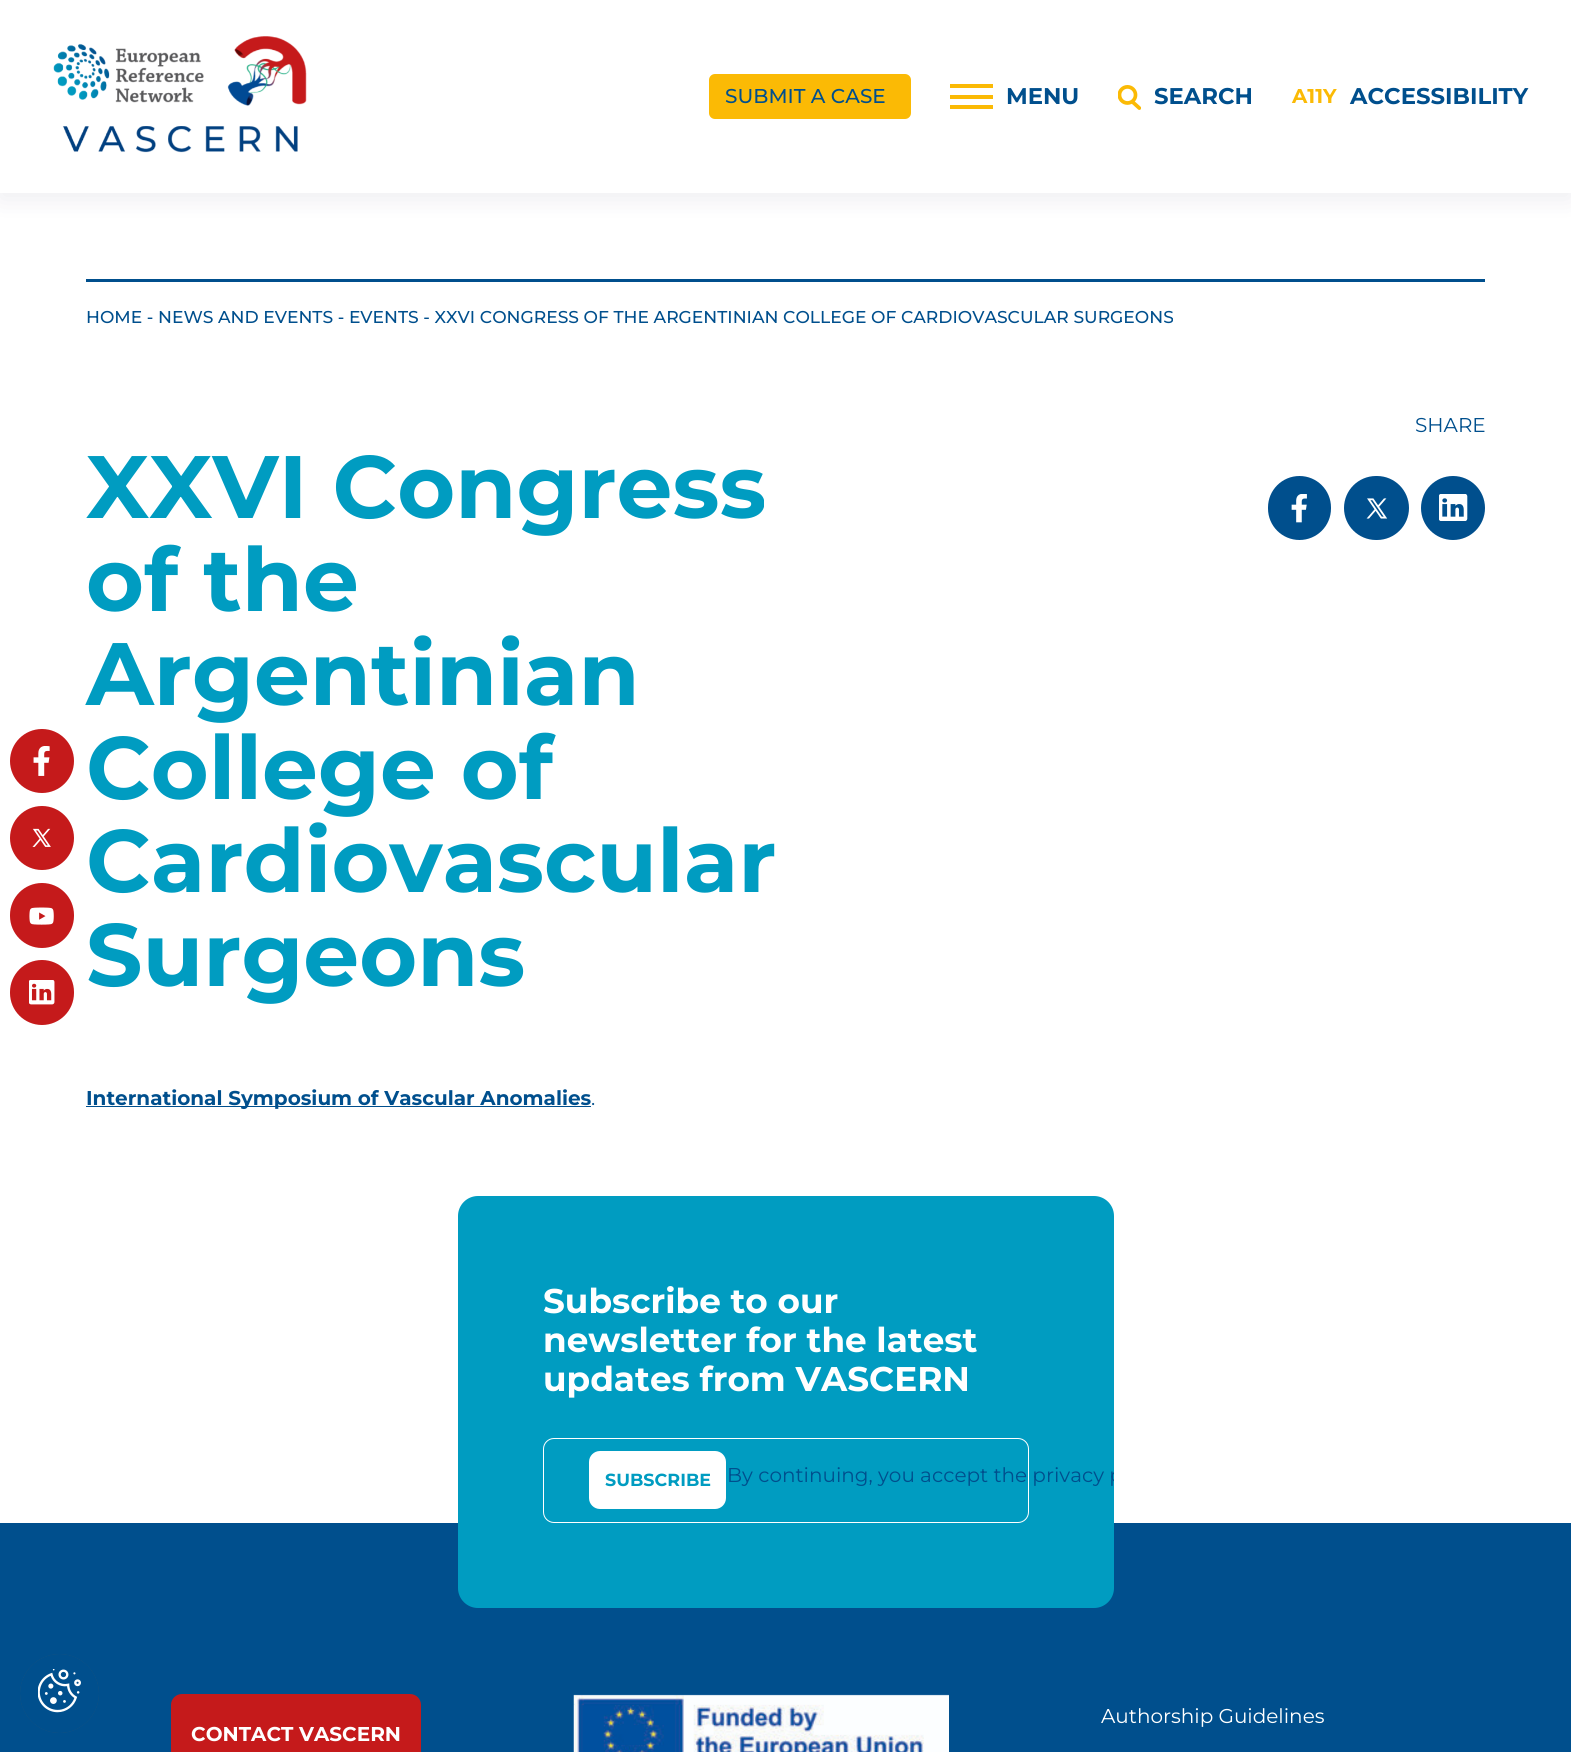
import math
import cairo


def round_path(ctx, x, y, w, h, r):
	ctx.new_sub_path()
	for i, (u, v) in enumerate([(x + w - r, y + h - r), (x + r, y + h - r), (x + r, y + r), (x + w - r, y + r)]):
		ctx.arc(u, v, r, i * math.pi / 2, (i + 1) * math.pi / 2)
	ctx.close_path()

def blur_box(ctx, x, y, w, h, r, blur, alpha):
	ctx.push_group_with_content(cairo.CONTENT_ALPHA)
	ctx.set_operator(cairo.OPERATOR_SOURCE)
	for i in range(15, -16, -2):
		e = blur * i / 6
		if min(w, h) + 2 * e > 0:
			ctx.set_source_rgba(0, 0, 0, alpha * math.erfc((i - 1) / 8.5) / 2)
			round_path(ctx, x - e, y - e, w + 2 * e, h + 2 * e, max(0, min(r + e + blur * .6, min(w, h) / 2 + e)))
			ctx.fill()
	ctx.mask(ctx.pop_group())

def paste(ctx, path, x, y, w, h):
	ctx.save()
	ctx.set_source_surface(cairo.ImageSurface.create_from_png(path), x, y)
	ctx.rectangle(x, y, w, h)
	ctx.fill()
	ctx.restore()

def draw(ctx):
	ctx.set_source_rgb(1, 1, 1)
	ctx.paint()
	ctx.set_source_rgb(0.11, 0.055, 0.29)
	blur_box(ctx, 0, 6, 1571, 193, 0, 12.5, 0.08)
	ctx.set_source_rgb(1, 1, 1)
	ctx.rectangle(0, 0, 1571, 193)
	ctx.fill()
	paste(ctx, 'media/1.png', 53, 36, 254, 117)
	ctx.set_source_rgb(0.984, 0.729, 0.02)
	round_path(ctx, 709, 74, 202, 45, 6)
	ctx.fill()
	ctx.select_font_face('Montserrat Medium')
	ctx.set_font_size(20)
	ctx.set_source_rgb(0, 0.31, 0.553)
	ctx.move_to(725, 103)
	ctx.show_text('SUBMIT A CASE')
	ctx.set_source_rgb(0.984, 0.729, 0.02)
	ctx.rectangle(950, 84, 43, 4)
	ctx.rectangle(950, 95, 43, 4)
	ctx.rectangle(950, 105, 43, 4)
	ctx.fill()
	ctx.select_font_face('Montserrat', cairo.FONT_SLANT_NORMAL, cairo.FONT_WEIGHT_BOLD)
	ctx.set_font_size(22.75)
	ctx.set_source_rgb(0, 0.31, 0.553)
	ctx.move_to(1006, 104)
	ctx.show_text('MENU')
	paste(ctx, 'media/2.png', 1118, 85, 23, 25)
	ctx.move_to(1154, 104)
	ctx.show_text('SEARCH')
	ctx.set_font_size(20)
	ctx.set_source_rgb(0.984, 0.729, 0.02)
	ctx.move_to(1292, 103)
	ctx.show_text('A11Y')
	ctx.set_font_size(22.75)
	ctx.set_source_rgb(0, 0.31, 0.553)
	ctx.move_to(1350, 104)
	ctx.show_text('ACCESSIBILITY')
	ctx.set_source_rgb(0.773, 0.102, 0.106)
	ctx.new_path()
	ctx.arc(42, 761, 32, 0, 2 * math.pi)
	ctx.fill()
	paste(ctx, 'media/3.png', 33, 746, 17, 30)
	ctx.arc(42, 838, 32, 0, 2 * math.pi)
	ctx.fill()
	paste(ctx, 'media/4.png', 32, 828, 19, 19)
	round_path(ctx, 10, 883, 64, 65, 32)
	ctx.fill()
	paste(ctx, 'media/5.png', 29, 907, 25, 18)
	round_path(ctx, 10, 960, 64, 65, 32)
	ctx.fill()
	paste(ctx, 'media/6.png', 29, 980, 26, 25)
	ctx.set_source_rgb(0, 0.31, 0.553)
	ctx.rectangle(86, 279, 1399, 3)
	ctx.fill()
	ctx.select_font_face('Montserrat Medium')
	ctx.set_font_size(17.15)
	ctx.move_to(86, 323)
	ctx.show_text('HOME - NEWS AND EVENTS - EVENTS - XXVI CONGRESS OF THE ARGENTINIAN COLLEGE OF CARDIOVASCULAR SURGEONS')
	ctx.select_font_face('Montserrat')
	ctx.set_font_size(20)
	ctx.move_to(1415, 432)
	ctx.show_text('SHARE')
	round_path(ctx, 1268, 476, 63, 64, 31.5)
	ctx.fill()
	paste(ctx, 'media/7.png', 1291, 494, 16, 29)
	round_path(ctx, 1344, 476, 65, 64, 32)
	ctx.fill()
	paste(ctx, 'media/8.png', 1366, 498, 22, 21)
	ctx.arc(1453, 508, 32, 0, 2 * math.pi)
	ctx.fill()
	paste(ctx, 'media/9.png', 1439, 494, 29, 27)
	ctx.select_font_face('Montserrat', cairo.FONT_SLANT_NORMAL, cairo.FONT_WEIGHT_BOLD)
	ctx.set_font_size(88.5)
	ctx.set_source_rgb(0, 0.612, 0.757)
	for x, y, s in [
		(86, 518, 'XXVI Congress'),
		(86, 611, 'of the'),
		(86, 705, 'Argentinian'),
		(86, 799, 'College of'),
		(86, 892, 'Cardiovascular'),
		(86, 986, 'Surgeons'),
	]:
		ctx.move_to(x, y)
		ctx.show_text(s)
	ctx.set_source_rgb(0, 0.31, 0.553)
	ctx.rectangle(86, 1106, 505, 1)
	ctx.fill()
	ctx.set_font_size(20)
	ctx.move_to(86, 1105)
	ctx.show_text('International Symposium of Vascular Anomalies')
	ctx.select_font_face('Montserrat')
	ctx.move_to(591, 1105)
	ctx.show_text('.')
	ctx.rectangle(0, 1523, 1571, 229)
	ctx.fill()
	ctx.set_source_rgb(0, 0.612, 0.757)
	round_path(ctx, 458, 1196, 656, 412, 20)
	ctx.fill()
	ctx.select_font_face('Montserrat', cairo.FONT_SLANT_NORMAL, cairo.FONT_WEIGHT_BOLD)
	ctx.set_font_size(34.25)
	ctx.set_source_rgb(1, 1, 1)
	for x, y, s in [
		(543, 1313, 'Subscribe to our'),
		(543, 1352, 'newsletter for the latest'),
		(543, 1391, 'updates from VASCERN'),
	]:
		ctx.move_to(x, y)
		ctx.show_text(s)
	round_path(ctx, 543.5, 1438.5, 485, 84, 10.5)
	ctx.set_line_width(1)
	ctx.stroke()
	round_path(ctx, 589, 1451, 137, 58, 11)
	ctx.fill()
	ctx.set_font_size(17.5)
	ctx.set_source_rgb(0, 0.612, 0.757)
	ctx.move_to(605, 1486)
	ctx.show_text('SUBSCRIBE')
	ctx.save()
	round_path(ctx, 458, 1196, 656, 412, 20)
	ctx.clip()
	ctx.select_font_face('Montserrat')
	ctx.set_font_size(20)
	ctx.set_source_rgb(0, 0.31, 0.553)
	ctx.move_to(727, 1482)
	ctx.show_text('By continuing, you accept the privacy p')
	ctx.restore()
	paste(ctx, 'media/10.png', 573, 1694, 376, 58)
	ctx.select_font_face('Montserrat')
	ctx.set_font_size(20)
	ctx.set_source_rgb(1, 1, 1)
	ctx.move_to(1101, 1723)
	ctx.show_text('Authorship Guidelines')
	ctx.set_source_rgb(0.773, 0.102, 0.106)
	round_path(ctx, 171, 1694, 250, 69, 11)
	ctx.fill()
	ctx.select_font_face('Montserrat', cairo.FONT_SLANT_NORMAL, cairo.FONT_WEIGHT_BOLD)
	ctx.set_source_rgb(1, 1, 1)
	ctx.move_to(191, 1741)
	ctx.show_text('CONTACT VASCERN')
	ctx.save()
	round_path(ctx, 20, 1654, 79, 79, 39.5)
	ctx.clip()
	ctx.set_source_rgb(0.329, 0.329, 0.329)
	blur_box(ctx, 20, 1654, 79, 79, 0, 62.5, 1)
	ctx.restore()
	ctx.set_source_rgb(0, 0.31, 0.553)
	ctx.arc(59.5, 1693.5, 39.5, 0, 2 * math.pi)
	ctx.fill()
	paste(ctx, 'media/11.png', 38, 1669, 43, 44)


surface = cairo.ImageSurface(cairo.FORMAT_RGB24, 1571, 1752)
ctx = cairo.Context(surface)
options = cairo.FontOptions()
options.set_hint_metrics(cairo.HINT_METRICS_OFF)
options.set_hint_style(cairo.HINT_STYLE_NONE)
ctx.set_font_options(options)
ctx.set_miter_limit(4)
draw(ctx)
surface.write_to_png('image.png')
